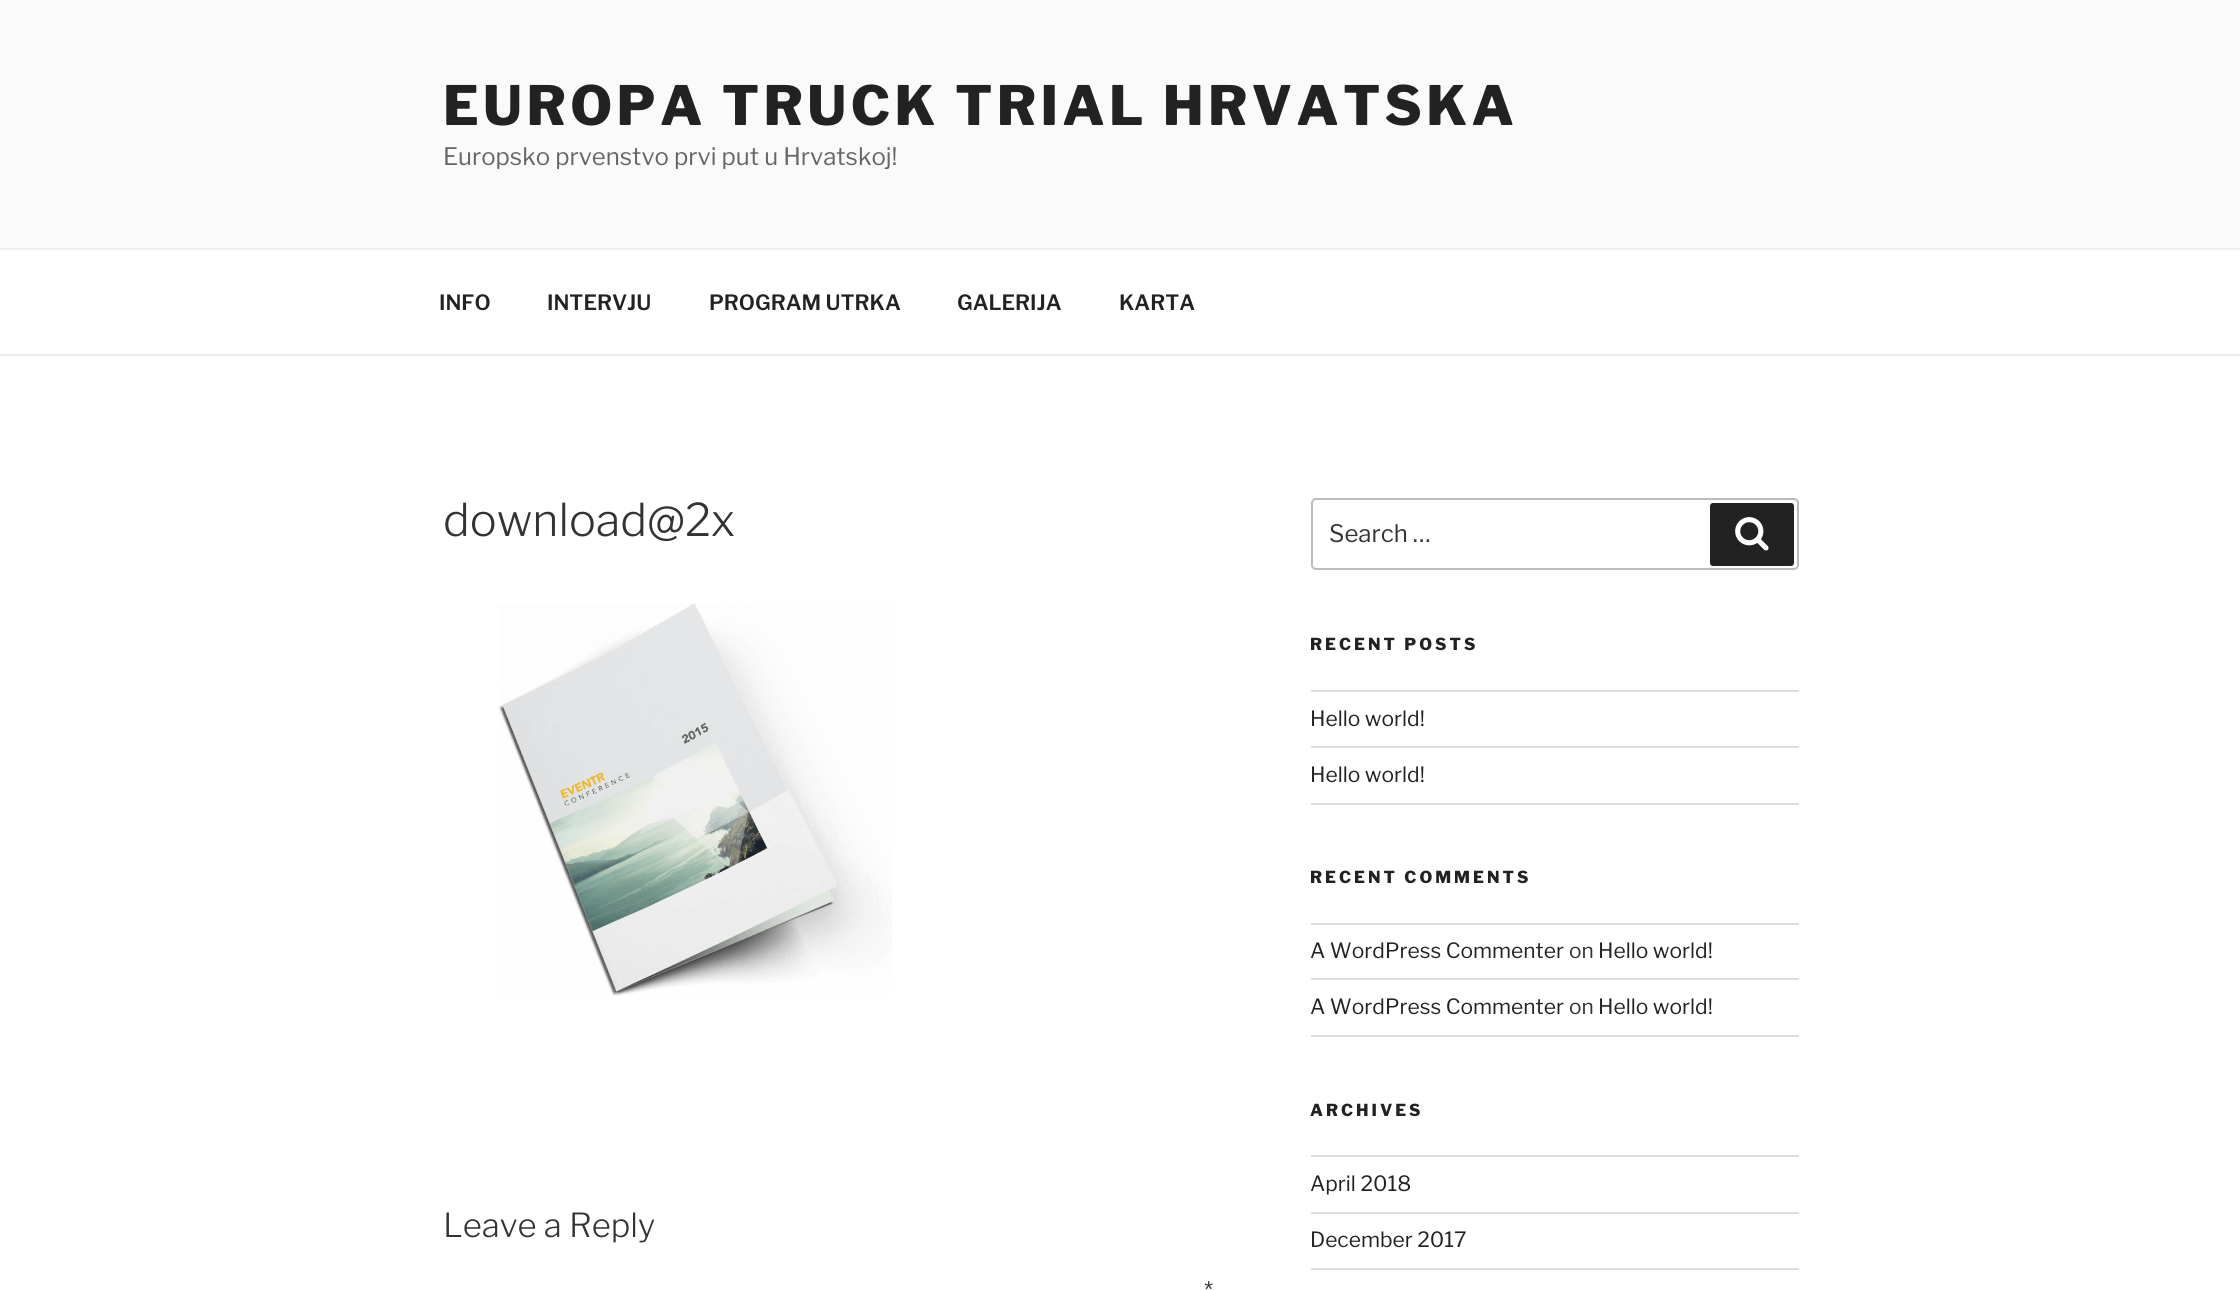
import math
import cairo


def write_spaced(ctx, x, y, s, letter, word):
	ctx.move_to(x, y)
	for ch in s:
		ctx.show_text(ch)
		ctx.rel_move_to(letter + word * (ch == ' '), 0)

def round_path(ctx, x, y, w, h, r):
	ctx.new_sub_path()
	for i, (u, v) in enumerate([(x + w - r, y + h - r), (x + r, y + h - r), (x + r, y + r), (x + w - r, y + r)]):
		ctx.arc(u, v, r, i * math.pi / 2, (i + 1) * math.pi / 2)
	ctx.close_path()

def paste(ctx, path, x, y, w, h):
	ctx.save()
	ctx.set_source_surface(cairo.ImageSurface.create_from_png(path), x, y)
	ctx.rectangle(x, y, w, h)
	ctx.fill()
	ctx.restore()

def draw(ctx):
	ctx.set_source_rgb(1, 1, 1)
	ctx.paint()
	ctx.set_source_rgb(0.98, 0.98, 0.98)
	ctx.rectangle(0, 0, 2240, 248)
	ctx.fill()
	ctx.select_font_face('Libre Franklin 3 Thin')
	ctx.set_font_size(54)
	ctx.set_source_rgb(0.133, 0.133, 0.133)
	write_spaced(ctx, 443, 125, 'EUROPA TRUCK TRIAL HRVATSKA', 4.3, 0)
	ctx.select_font_face('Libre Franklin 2 Thin')
	ctx.set_font_size(24)
	ctx.set_source_rgb(0.4, 0.4, 0.4)
	ctx.move_to(443, 165)
	ctx.show_text('Europsko prvenstvo prvi put u Hrvatskoj!')
	ctx.set_source_rgb(0.933, 0.933, 0.933)
	ctx.rectangle(0, 248, 2240, 2)
	ctx.fill()
	ctx.rectangle(0, 354, 2240, 2)
	ctx.fill()
	ctx.select_font_face('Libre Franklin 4 Thin')
	ctx.set_font_size(21)
	ctx.set_source_rgb(0.133, 0.133, 0.133)
	for x, y, s in [
		(439, 310, 'INFO'),
		(547, 310, 'INTERVJU'),
		(709, 310, 'PROGRAM UTRKA'),
		(957, 310, 'GALERIJA'),
		(1119, 310, 'KARTA'),
	]:
		ctx.move_to(x, y)
		ctx.show_text(s)
	ctx.select_font_face('Libre Franklin Thin')
	ctx.set_font_size(45)
	ctx.set_source_rgb(0.2, 0.2, 0.2)
	ctx.move_to(443, 536)
	ctx.show_text('download@2x')
	paste(ctx, 'media/1.png', 498, 603, 394, 393)
	ctx.set_font_size(33)
	ctx.move_to(443, 1237)
	ctx.show_text('Leave a Reply')
	ctx.select_font_face('Libre Franklin 2 Thin')
	ctx.set_font_size(24)
	ctx.move_to(1204, 1299)
	ctx.show_text('*')
	round_path(ctx, 1312, 499, 486, 70, 4)
	ctx.set_source_rgb(0.733, 0.733, 0.733)
	ctx.stroke()
	ctx.set_source_rgb(0.2, 0.2, 0.2)
	ctx.move_to(1329, 542)
	ctx.show_text('Search …')
	ctx.set_source_rgb(0.133, 0.133, 0.133)
	round_path(ctx, 1710, 503, 84, 63, 3)
	ctx.fill()
	paste(ctx, 'media/2.png', 1735, 517, 34, 34)
	ctx.select_font_face('Libre Franklin 3 Thin')
	ctx.set_font_size(16.5)
	write_spaced(ctx, 1310, 650, 'RECENT POSTS', 3, 0)
	ctx.set_source_rgb(0.867, 0.867, 0.867)
	ctx.rectangle(1311, 690, 488, 2)
	ctx.fill()
	ctx.rectangle(1311, 746, 488, 2)
	ctx.fill()
	ctx.select_font_face('Libre Franklin 2 Thin')
	ctx.set_font_size(21)
	ctx.set_source_rgb(0.133, 0.133, 0.133)
	ctx.move_to(1310, 726)
	ctx.show_text('Hello world!')
	ctx.set_source_rgb(0.867, 0.867, 0.867)
	ctx.rectangle(1311, 803, 488, 2)
	ctx.fill()
	ctx.set_source_rgb(0.133, 0.133, 0.133)
	ctx.move_to(1310, 782)
	ctx.show_text('Hello world!')
	ctx.select_font_face('Libre Franklin 3 Thin')
	ctx.set_font_size(16.5)
	write_spaced(ctx, 1310, 883, 'RECENT COMMENTS', 3, 0)
	ctx.set_source_rgb(0.867, 0.867, 0.867)
	ctx.rectangle(1311, 923, 488, 2)
	ctx.fill()
	ctx.rectangle(1311, 978, 488, 2)
	ctx.fill()
	ctx.select_font_face('Libre Franklin 2 Thin')
	ctx.set_font_size(21)
	ctx.set_source_rgb(0.133, 0.133, 0.133)
	ctx.move_to(1310, 958)
	ctx.show_text('A WordPress Commenter')
	ctx.set_source_rgb(0.2, 0.2, 0.2)
	ctx.move_to(1569, 958)
	ctx.show_text('on')
	ctx.set_source_rgb(0.133, 0.133, 0.133)
	ctx.move_to(1598, 958)
	ctx.show_text('Hello world!')
	ctx.set_source_rgb(0.867, 0.867, 0.867)
	ctx.rectangle(1311, 1035, 488, 2)
	ctx.fill()
	ctx.set_source_rgb(0.133, 0.133, 0.133)
	ctx.move_to(1310, 1014)
	ctx.show_text('A WordPress Commenter')
	ctx.set_source_rgb(0.2, 0.2, 0.2)
	ctx.move_to(1569, 1014)
	ctx.show_text('on')
	ctx.set_source_rgb(0.133, 0.133, 0.133)
	ctx.move_to(1598, 1014)
	ctx.show_text('Hello world!')
	ctx.select_font_face('Libre Franklin 3 Thin')
	ctx.set_font_size(16.5)
	write_spaced(ctx, 1310, 1116, 'ARCHIVES', 3, 0)
	ctx.set_source_rgb(0.867, 0.867, 0.867)
	ctx.rectangle(1311, 1155, 488, 2)
	ctx.fill()
	ctx.rectangle(1311, 1212, 488, 2)
	ctx.fill()
	ctx.select_font_face('Libre Franklin 2 Thin')
	ctx.set_font_size(21)
	ctx.set_source_rgb(0.133, 0.133, 0.133)
	ctx.move_to(1310, 1191)
	ctx.show_text('April 2018')
	ctx.set_source_rgb(0.867, 0.867, 0.867)
	ctx.rectangle(1311, 1268, 488, 2)
	ctx.fill()
	ctx.set_source_rgb(0.133, 0.133, 0.133)
	ctx.move_to(1310, 1247)
	ctx.show_text('December 2017')


surface = cairo.ImageSurface(cairo.FORMAT_RGB24, 2240, 1290)
ctx = cairo.Context(surface)
options = cairo.FontOptions()
options.set_hint_metrics(cairo.HINT_METRICS_OFF)
options.set_hint_style(cairo.HINT_STYLE_NONE)
ctx.set_font_options(options)
ctx.set_miter_limit(4)
draw(ctx)
surface.write_to_png('image.png')
